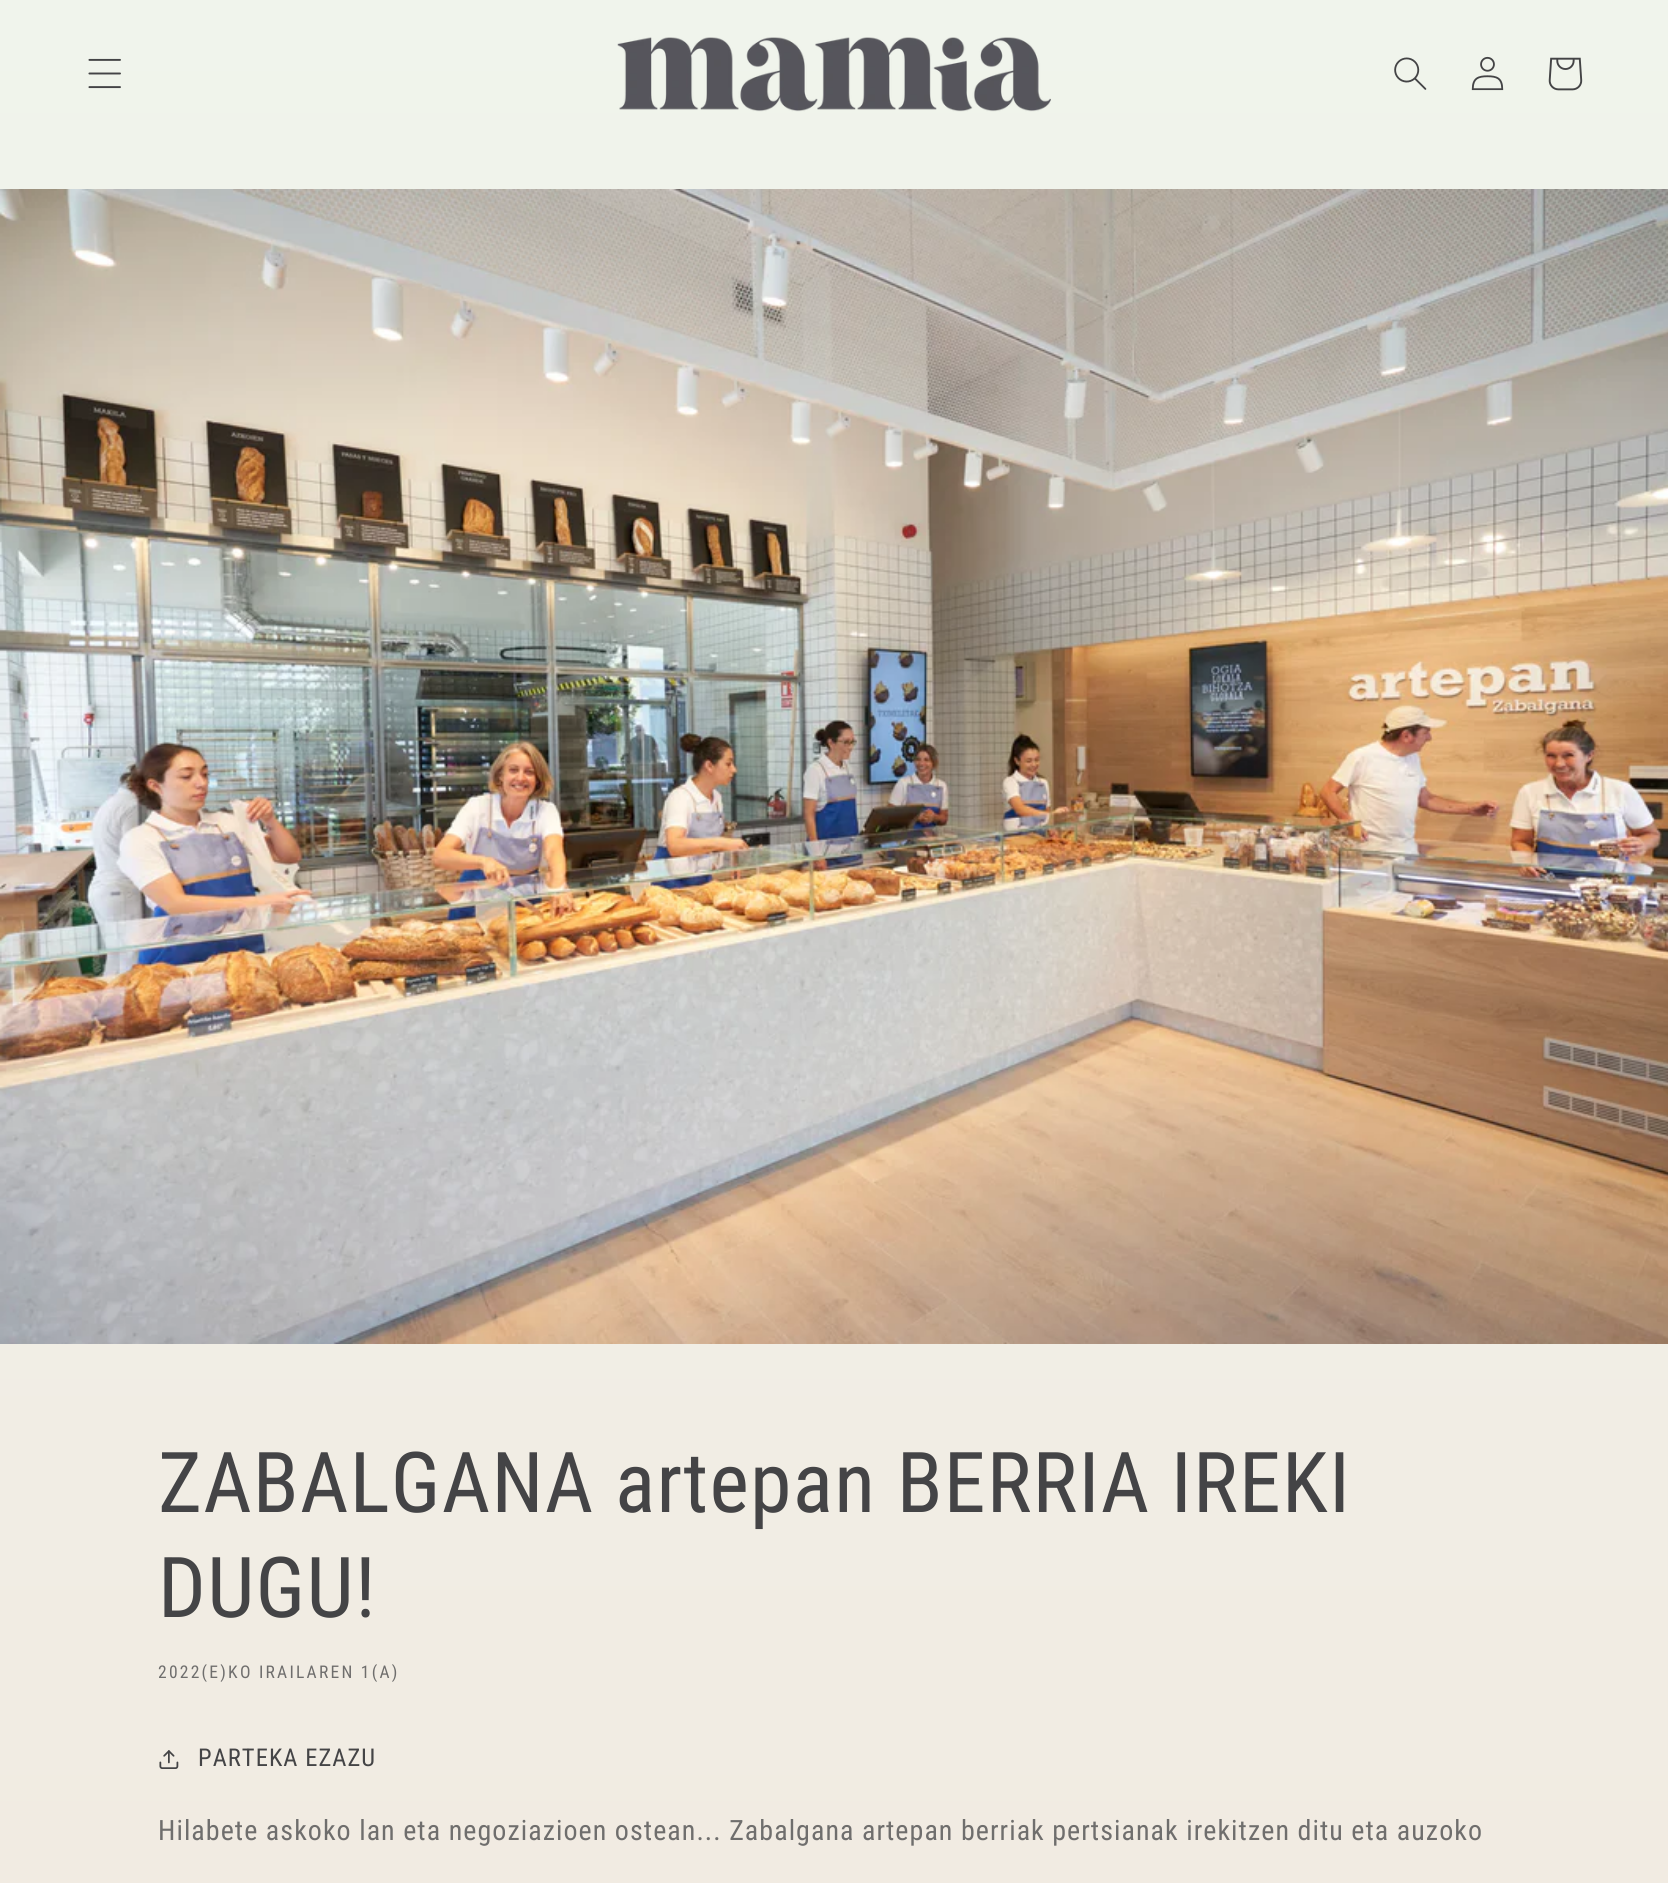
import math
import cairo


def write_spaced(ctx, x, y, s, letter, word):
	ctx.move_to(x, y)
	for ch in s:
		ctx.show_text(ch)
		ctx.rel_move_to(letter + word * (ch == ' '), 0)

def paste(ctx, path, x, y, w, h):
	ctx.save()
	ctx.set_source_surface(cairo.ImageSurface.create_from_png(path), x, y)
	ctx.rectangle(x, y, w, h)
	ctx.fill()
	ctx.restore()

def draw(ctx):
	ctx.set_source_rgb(1, 1, 1)
	ctx.paint()
	gradient = cairo.LinearGradient(835, 0, 835, 1883)
	gradient.add_color_stop_rgba(0, 0.941, 0.957, 0.925, 1)
	gradient.add_color_stop_rgba(1, 0.945, 0.922, 0.886, 1)
	ctx.set_source(gradient)
	ctx.rectangle(0, 0, 1668, 1883)
	ctx.fill()
	paste(ctx, 'media/1.png', 88, 58, 33, 31)
	paste(ctx, 'media/2.png', 617, 37, 434, 75)
	paste(ctx, 'media/3.png', 1394, 57, 33, 33)
	paste(ctx, 'media/4.png', 1471, 56, 33, 35)
	paste(ctx, 'media/5.png', 1548, 57, 35, 34)
	paste(ctx, 'media/6.png', 0, 189, 1668, 1155)
	ctx.select_font_face('Roboto Condensed')
	ctx.set_font_size(84)
	ctx.set_source_rgb(0.267, 0.267, 0.275)
	write_spaced(ctx, 158, 1512, 'ZABALGANA artepan BERRIA IREKI', 1.25, 0)
	write_spaced(ctx, 158, 1617, 'DUGU!', 1.25, 0)
	ctx.set_font_size(17.5)
	ctx.set_source_rgb(0.435, 0.431, 0.427)
	write_spaced(ctx, 158, 1678, '2022(E)KO IRAILAREN 1(A)', 2.25, 0)
	paste(ctx, 'media/7.png', 159, 1750, 20, 19)
	ctx.set_font_size(24.5)
	ctx.set_source_rgb(0.267, 0.267, 0.275)
	write_spaced(ctx, 198, 1766, 'PARTEKA EZAZU', 1.05, 0)
	ctx.set_font_size(28)
	ctx.set_source_rgb(0.435, 0.431, 0.427)
	write_spaced(ctx, 158, 1840, 'Hilabete askoko lan eta negoziazioen ostean... Zabalgana artepan berriak pertsianak irekitzen ditu eta auzoko', 1.05, 0)


surface = cairo.ImageSurface(cairo.FORMAT_RGB24, 1668, 1883)
ctx = cairo.Context(surface)
options = cairo.FontOptions()
options.set_hint_metrics(cairo.HINT_METRICS_OFF)
options.set_hint_style(cairo.HINT_STYLE_NONE)
ctx.set_font_options(options)
ctx.set_miter_limit(4)
draw(ctx)
surface.write_to_png('image.png')
